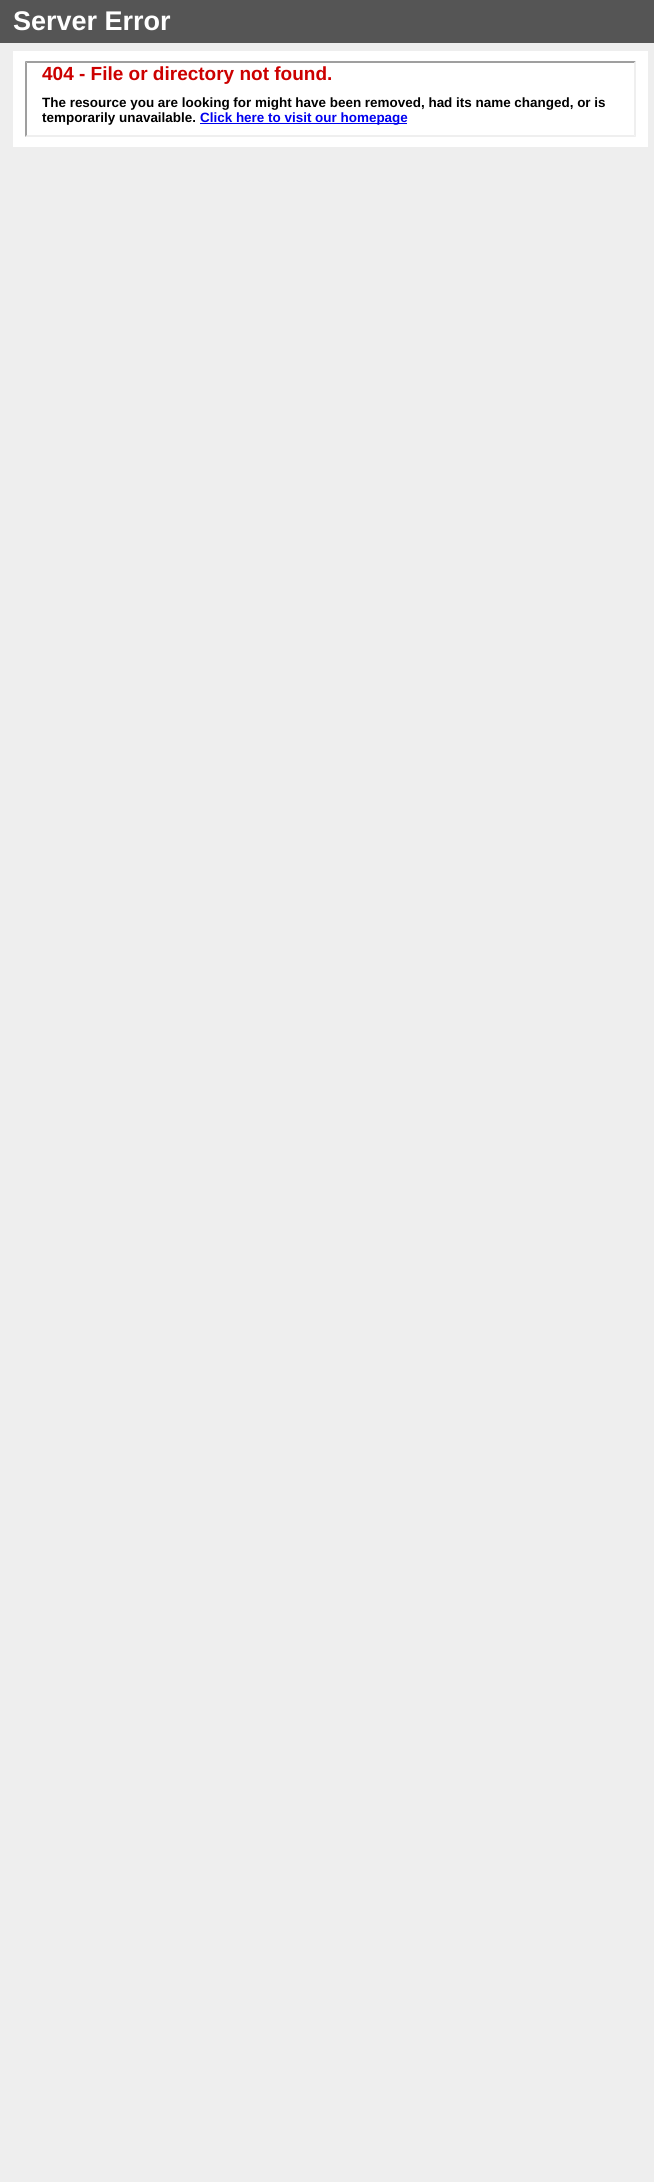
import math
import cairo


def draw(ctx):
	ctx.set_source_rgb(0.933, 0.933, 0.933)
	ctx.paint()
	ctx.set_source_rgb(0.333, 0.333, 0.333)
	ctx.rectangle(0, 0, 654, 43)
	ctx.fill()
	ctx.select_font_face('Liberation Sans', cairo.FONT_SLANT_NORMAL, cairo.FONT_WEIGHT_BOLD)
	ctx.set_font_size(27)
	ctx.set_source_rgb(1, 1, 1)
	ctx.move_to(13, 30)
	ctx.show_text('Server Error')
	ctx.rectangle(13, 51, 635, 96)
	ctx.fill()
	ctx.set_source_rgb(0.624, 0.624, 0.624)
	ctx.new_path()
	ctx.move_to(25, 61)
	ctx.line_to(636, 61)
	ctx.line_to(634, 63)
	ctx.line_to(27, 63)
	ctx.close_path()
	ctx.fill()
	ctx.set_source_rgb(0.937, 0.937, 0.937)
	ctx.new_path()
	ctx.move_to(636, 61)
	ctx.line_to(636, 137)
	ctx.line_to(634, 135)
	ctx.line_to(634, 63)
	ctx.close_path()
	ctx.fill()
	ctx.new_path()
	ctx.move_to(636, 137)
	ctx.line_to(25, 137)
	ctx.line_to(27, 135)
	ctx.line_to(634, 135)
	ctx.close_path()
	ctx.fill()
	ctx.set_source_rgb(0.624, 0.624, 0.624)
	ctx.new_path()
	ctx.move_to(25, 137)
	ctx.line_to(25, 61)
	ctx.line_to(27, 63)
	ctx.line_to(27, 135)
	ctx.close_path()
	ctx.fill()
	ctx.set_font_size(19)
	ctx.set_source_rgb(0.8, 0, 0)
	ctx.move_to(42, 80)
	ctx.show_text('404 - File or directory not found.')
	ctx.set_font_size(13.45)
	ctx.set_source_rgb(0, 0, 0)
	ctx.move_to(42, 107)
	ctx.show_text('The resource you are looking for might have been removed, had its name changed, or is')
	ctx.move_to(42, 122)
	ctx.show_text('temporarily unavailable.')
	ctx.set_source_rgb(0, 0, 0.933)
	ctx.rectangle(200, 123, 207, 1)
	ctx.fill()
	ctx.move_to(200, 122)
	ctx.show_text('Click here to visit our homepage')


surface = cairo.ImageSurface(cairo.FORMAT_RGB24, 654, 2182)
ctx = cairo.Context(surface)
options = cairo.FontOptions()
options.set_hint_metrics(cairo.HINT_METRICS_OFF)
options.set_hint_style(cairo.HINT_STYLE_NONE)
ctx.set_font_options(options)
ctx.set_miter_limit(4)
draw(ctx)
surface.write_to_png('image.png')
